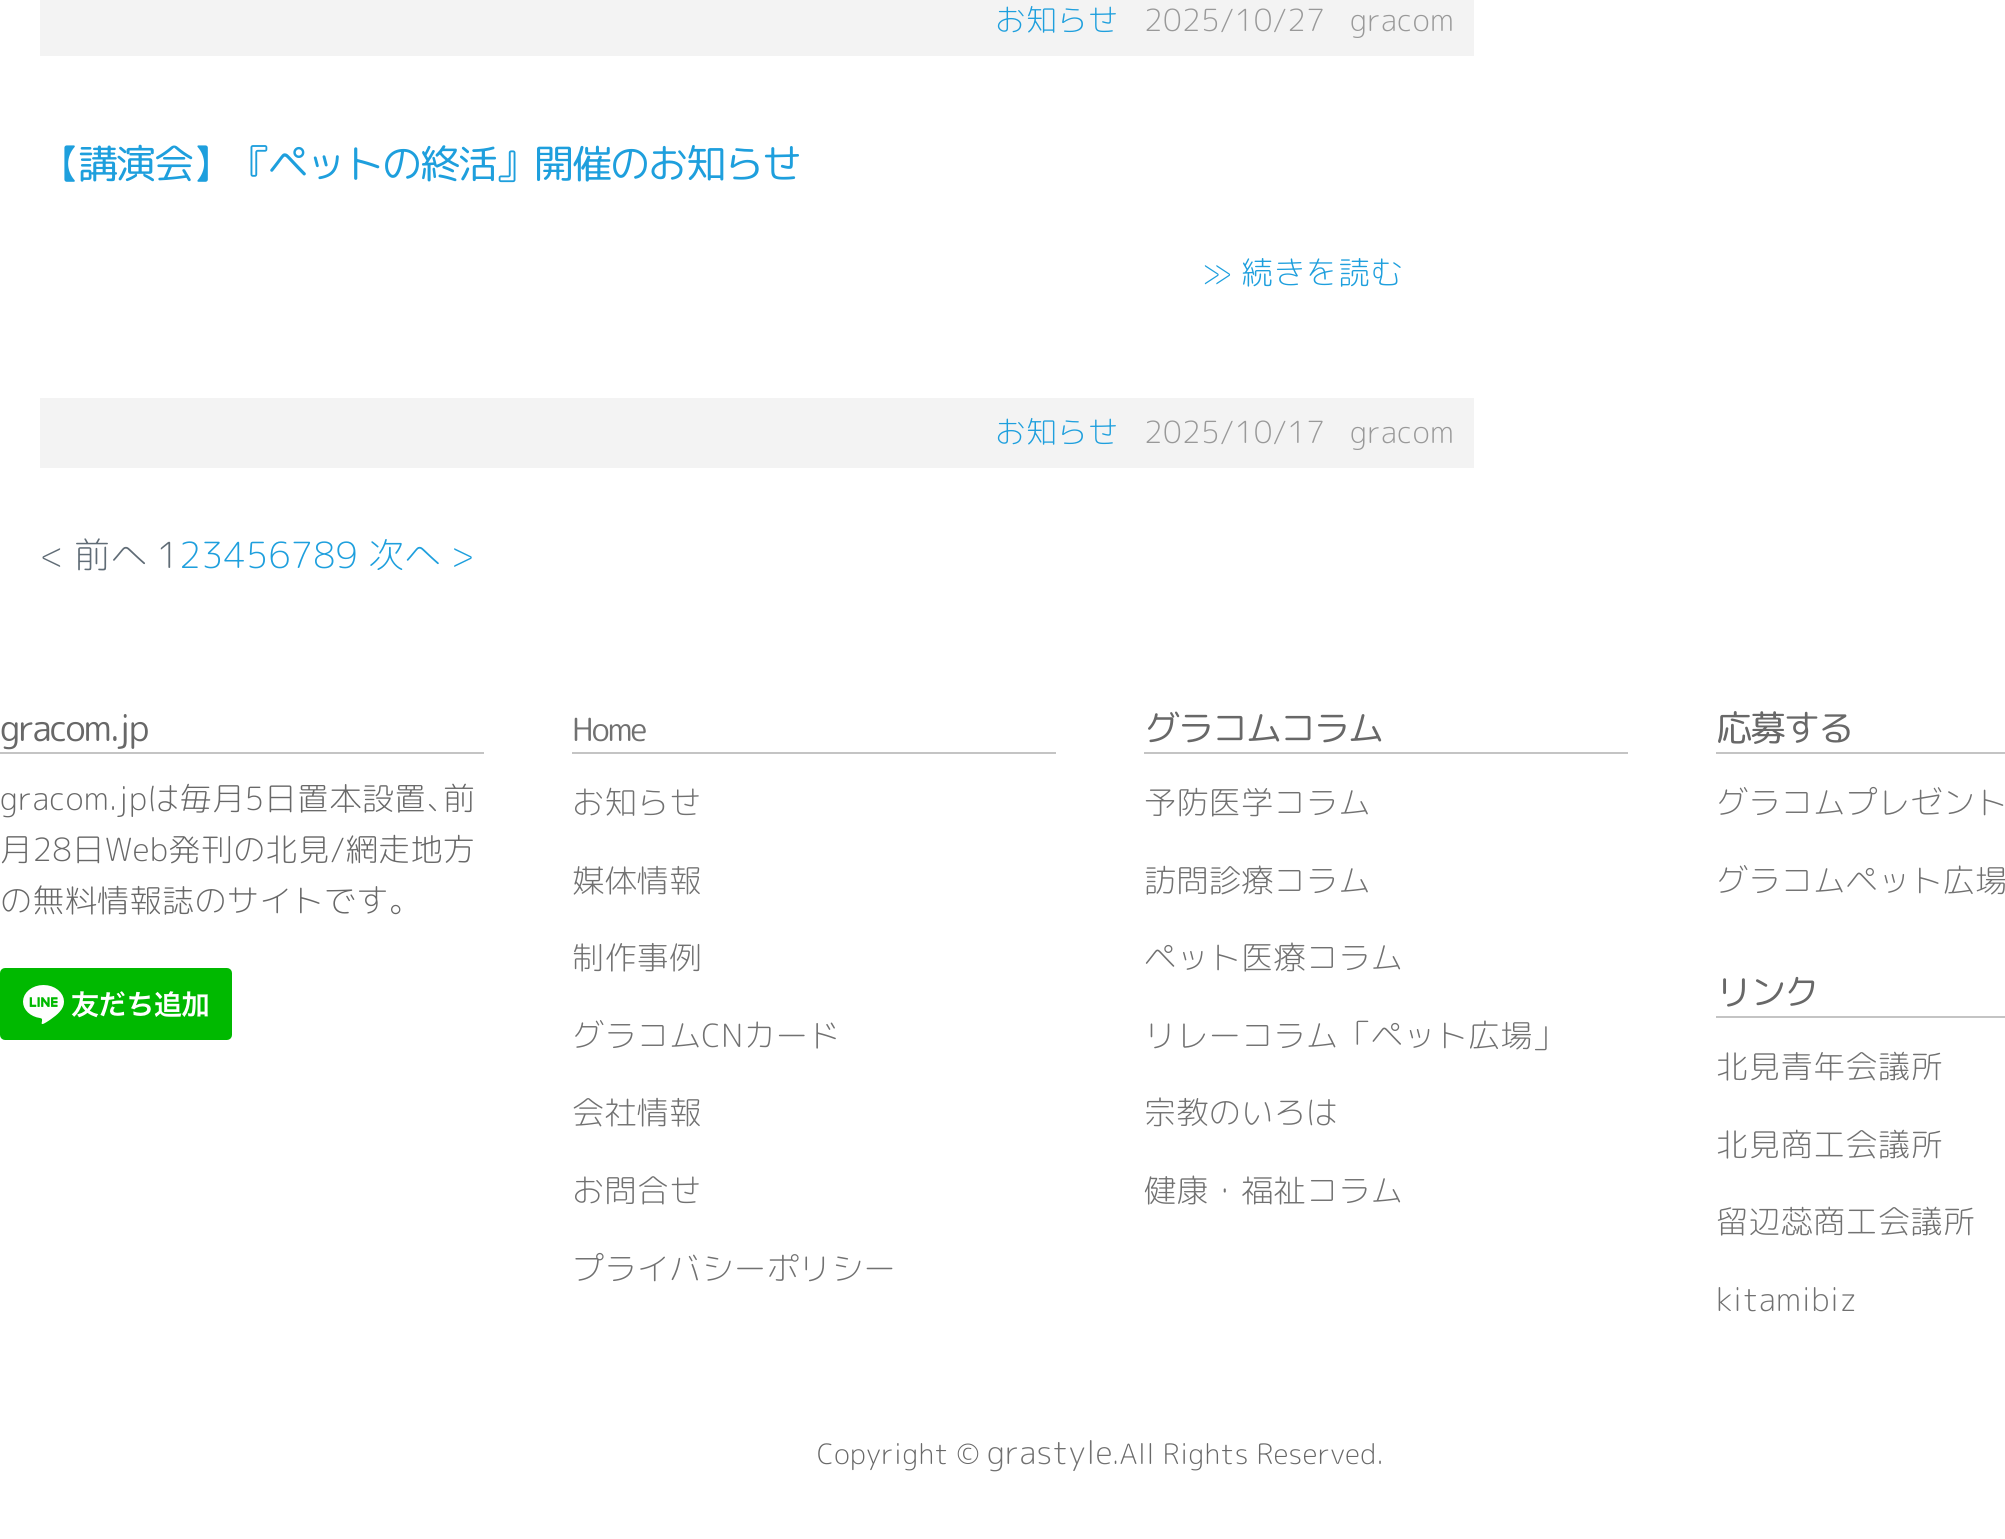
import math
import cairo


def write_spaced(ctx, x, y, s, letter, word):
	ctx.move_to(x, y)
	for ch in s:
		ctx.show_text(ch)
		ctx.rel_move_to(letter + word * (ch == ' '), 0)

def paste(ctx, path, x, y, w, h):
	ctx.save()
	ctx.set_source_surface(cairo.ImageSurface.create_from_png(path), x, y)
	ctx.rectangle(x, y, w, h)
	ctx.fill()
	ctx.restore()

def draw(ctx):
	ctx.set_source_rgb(1, 1, 1)
	ctx.paint()
	ctx.set_source_rgb(0.953, 0.953, 0.953)
	ctx.rectangle(40, 0, 1434, 56)
	ctx.fill()
	ctx.select_font_face('Rounded Mplus 1c Light')
	ctx.set_font_size(30.5)
	ctx.set_source_rgb(0.118, 0.624, 0.867)
	write_spaced(ctx, 995, 31, 'お知らせ', 0.4, 0)
	ctx.set_source_rgb(0.6, 0.6, 0.6)
	write_spaced(ctx, 1144, 31, '2025/10/27', 0.4, 0)
	write_spaced(ctx, 1350, 31, 'gracom', 0.4, 0)
	ctx.select_font_face('Rounded Mplus 1c')
	ctx.set_font_size(40)
	ctx.set_source_rgb(0.118, 0.624, 0.867)
	write_spaced(ctx, 40, 178, '【講演会】『ペットの終活』開催のお知らせ', -2, 0)
	ctx.select_font_face('Rounded Mplus 1c Light')
	ctx.set_font_size(32)
	write_spaced(ctx, 1202, 284, '≫ 続きを読む', 0.4, 0)
	ctx.set_source_rgb(0.953, 0.953, 0.953)
	ctx.rectangle(40, 398, 1434, 70)
	ctx.fill()
	ctx.set_font_size(30.5)
	ctx.set_source_rgb(0.118, 0.624, 0.867)
	write_spaced(ctx, 995, 443, 'お知らせ', 0.4, 0)
	ctx.set_source_rgb(0.6, 0.6, 0.6)
	write_spaced(ctx, 1144, 443, '2025/10/17', 0.4, 0)
	write_spaced(ctx, 1350, 443, 'gracom', 0.4, 0)
	ctx.set_font_size(36)
	ctx.set_source_rgb(0.376, 0.424, 0.463)
	write_spaced(ctx, 40, 568, '< 前へ 1', 0.4, 0)
	ctx.set_source_rgb(0.118, 0.624, 0.867)
	write_spaced(ctx, 179, 568, '23456789 次へ >', 0.4, 0)
	ctx.set_source_rgb(0.769, 0.769, 0.769)
	ctx.rectangle(0, 752, 484, 2)
	ctx.fill()
	ctx.select_font_face('Rounded Mplus 1c')
	ctx.set_source_rgb(0.408, 0.408, 0.408)
	write_spaced(ctx, 0, 741, 'gracom.jp', -2, 0)
	ctx.select_font_face('Rounded Mplus 1c Light')
	ctx.set_font_size(32)
	for x, y, s in [
		(0, 810, 'gracom.jpは毎月5日置本設置､前'),
		(0, 861, '月28日Web発刊の北見/網走地方'),
		(0, 912, 'の無料情報誌のサイトです｡'),
	]:
		write_spaced(ctx, x, y, s, 0.4, 0)
	paste(ctx, 'media/1.png', 0, 968, 232, 72)
	ctx.set_source_rgb(0.769, 0.769, 0.769)
	ctx.rectangle(572, 752, 484, 2)
	ctx.fill()
	ctx.select_font_face('Rounded Mplus 1c')
	ctx.set_source_rgb(0.443, 0.443, 0.443)
	write_spaced(ctx, 572, 741, 'Home', -2, 0)
	ctx.select_font_face('Rounded Mplus 1c Light')
	for x, y, s in [
		(572, 814, 'お知らせ'),
		(572, 892, '媒体情報'),
		(572, 969, '制作事例'),
		(572, 1047, 'グラコムCNカード'),
		(572, 1124, '会社情報'),
		(572, 1202, 'お問合せ'),
		(572, 1280, 'プライバシーポリシー'),
	]:
		write_spaced(ctx, x, y, s, 0.4, 0)
	ctx.set_source_rgb(0.769, 0.769, 0.769)
	ctx.rectangle(1144, 752, 484, 2)
	ctx.fill()
	ctx.select_font_face('Rounded Mplus 1c')
	ctx.set_font_size(36)
	ctx.set_source_rgb(0.408, 0.408, 0.408)
	write_spaced(ctx, 1144, 741, 'グラコムコラム', -2, 0)
	ctx.select_font_face('Rounded Mplus 1c Light')
	ctx.set_font_size(32)
	ctx.set_source_rgb(0.443, 0.443, 0.443)
	for x, y, s in [
		(1144, 814, '予防医学コラム'),
		(1144, 892, '訪問診療コラム'),
		(1144, 969, 'ペット医療コラム'),
		(1144, 1047, 'リレーコラム「ペット広場」'),
		(1144, 1124, '宗教のいろは'),
		(1144, 1202, '健康・福祉コラム'),
	]:
		write_spaced(ctx, x, y, s, 0.4, 0)
	ctx.set_source_rgb(0.769, 0.769, 0.769)
	ctx.rectangle(1716, 752, 289, 2)
	ctx.fill()
	ctx.select_font_face('Rounded Mplus 1c')
	ctx.set_font_size(36)
	ctx.set_source_rgb(0.408, 0.408, 0.408)
	write_spaced(ctx, 1716, 741, '応募する', -2, 0)
	ctx.select_font_face('Rounded Mplus 1c Light')
	ctx.set_font_size(32)
	ctx.set_source_rgb(0.443, 0.443, 0.443)
	write_spaced(ctx, 1716, 814, 'グラコムプレゼント', 0.4, 0)
	write_spaced(ctx, 1716, 892, 'グラコムペット広場', 0.4, 0)
	ctx.set_source_rgb(0.769, 0.769, 0.769)
	ctx.rectangle(1716, 1016, 289, 2)
	ctx.fill()
	ctx.select_font_face('Rounded Mplus 1c')
	ctx.set_font_size(36)
	ctx.set_source_rgb(0.408, 0.408, 0.408)
	write_spaced(ctx, 1716, 1005, 'リンク', -2, 0)
	ctx.select_font_face('Rounded Mplus 1c Light')
	ctx.set_font_size(32)
	ctx.set_source_rgb(0.443, 0.443, 0.443)
	for x, y, s in [
		(1716, 1078, '北見青年会議所'),
		(1716, 1156, '北見商工会議所'),
		(1716, 1233, '留辺蕊商工会議所'),
		(1716, 1311, 'kitamibiz'),
	]:
		write_spaced(ctx, x, y, s, 0.4, 0)
	ctx.set_font_size(28)
	ctx.set_source_rgb(0.408, 0.408, 0.408)
	write_spaced(ctx, 817, 1464, 'Copyright ©', 0.4, 0)
	ctx.set_font_size(32)
	ctx.set_source_rgb(0.443, 0.443, 0.443)
	write_spaced(ctx, 987, 1464, 'grastyle', 0.4, 0)
	ctx.set_font_size(28)
	ctx.set_source_rgb(0.408, 0.408, 0.408)
	write_spaced(ctx, 1112, 1464, '.All Rights Reserved.', 0.4, 0)


surface = cairo.ImageSurface(cairo.FORMAT_RGB24, 2005, 1539)
ctx = cairo.Context(surface)
options = cairo.FontOptions()
options.set_hint_metrics(cairo.HINT_METRICS_OFF)
options.set_hint_style(cairo.HINT_STYLE_NONE)
ctx.set_font_options(options)
ctx.set_miter_limit(4)
draw(ctx)
surface.write_to_png('image.png')
